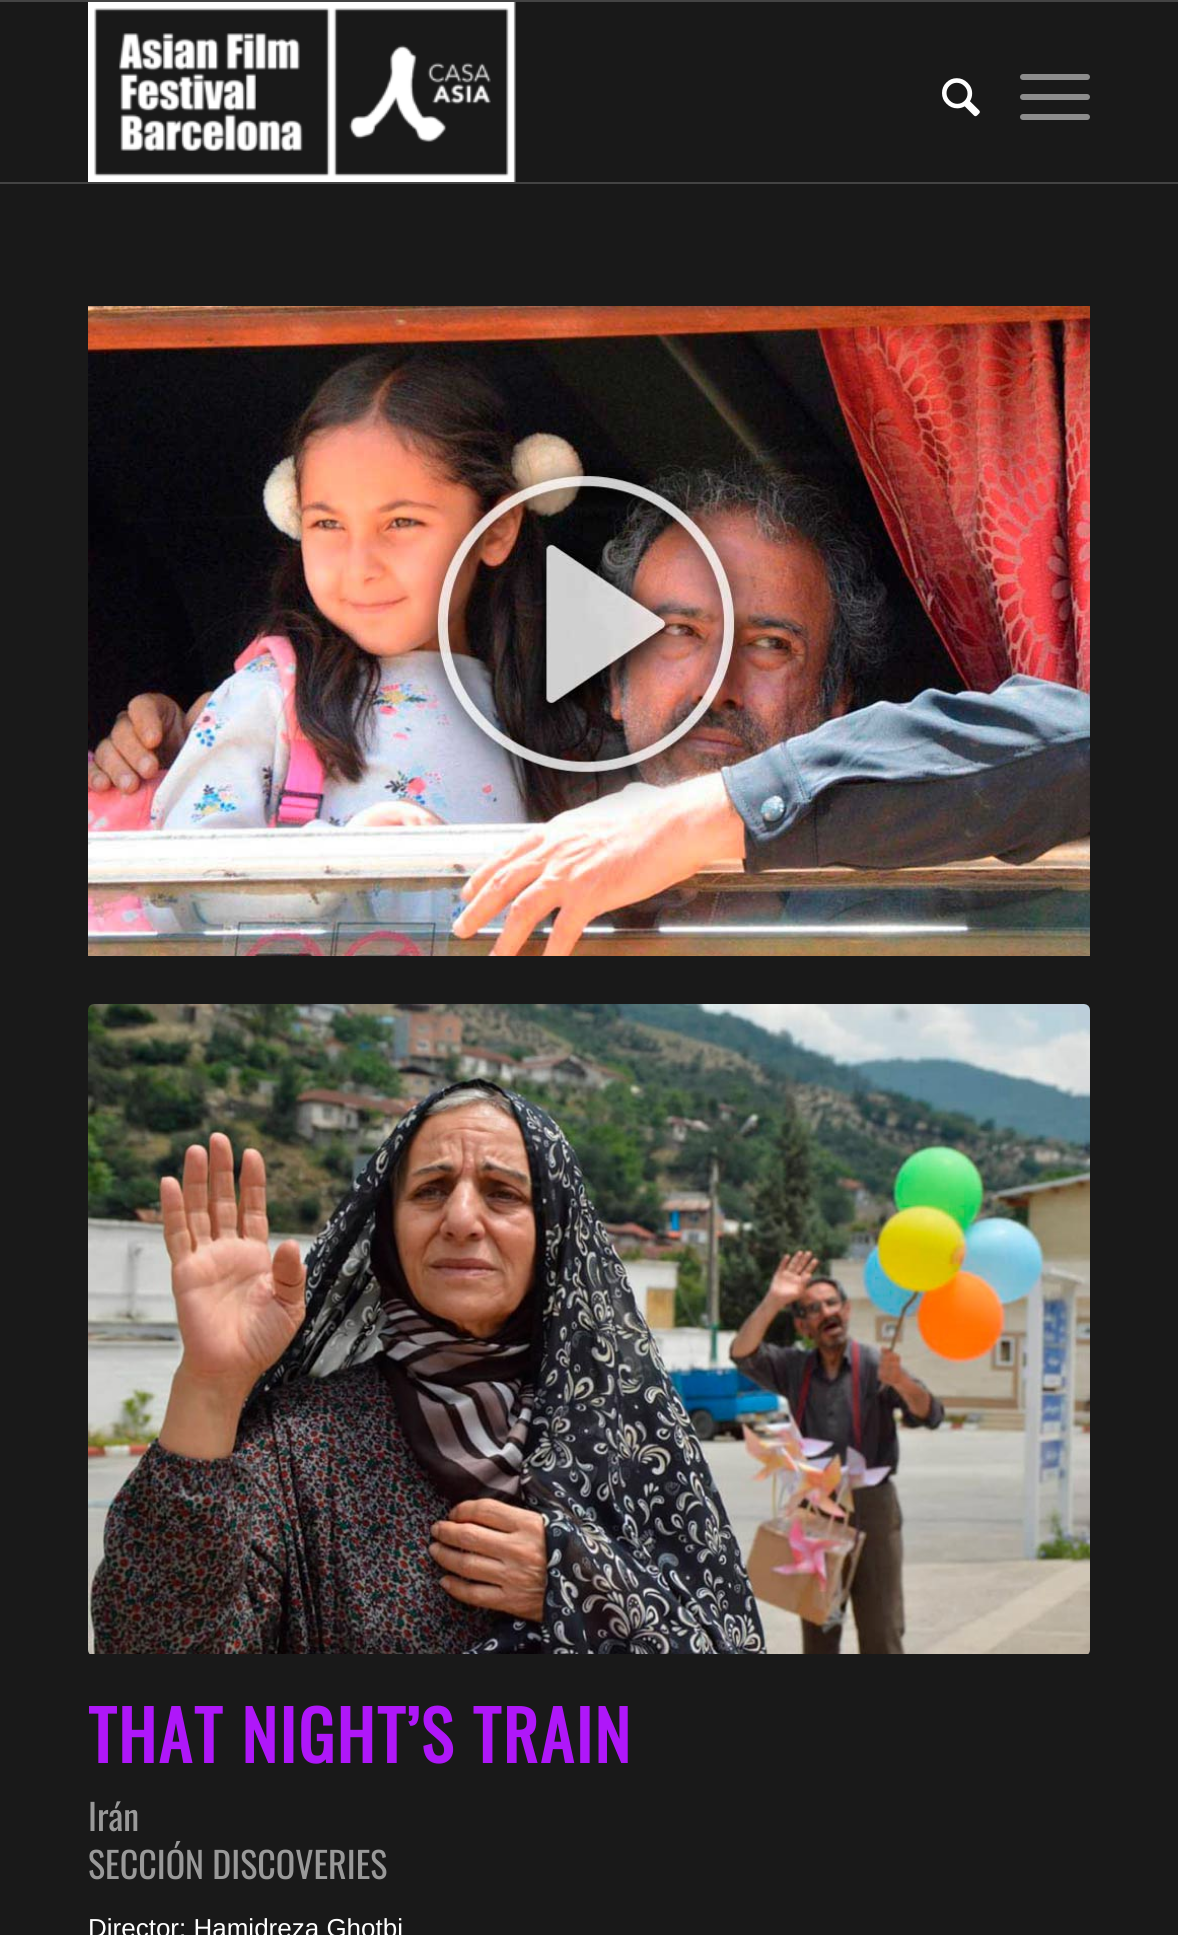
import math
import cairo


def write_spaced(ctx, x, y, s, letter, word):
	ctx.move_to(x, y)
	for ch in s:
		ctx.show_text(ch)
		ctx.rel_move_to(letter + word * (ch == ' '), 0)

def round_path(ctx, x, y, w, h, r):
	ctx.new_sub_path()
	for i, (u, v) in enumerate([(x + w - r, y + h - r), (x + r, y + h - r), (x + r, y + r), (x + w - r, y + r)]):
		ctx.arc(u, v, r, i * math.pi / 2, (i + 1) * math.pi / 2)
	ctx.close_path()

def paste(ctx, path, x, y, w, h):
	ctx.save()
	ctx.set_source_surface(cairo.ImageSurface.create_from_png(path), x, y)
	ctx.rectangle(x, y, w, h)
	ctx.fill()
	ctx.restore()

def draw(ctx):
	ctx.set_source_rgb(0.098, 0.098, 0.098)
	ctx.paint()
	ctx.set_source_rgb(0.267, 0.267, 0.267)
	ctx.rectangle(0, 0, 1178, 2)
	ctx.fill()
	ctx.rectangle(0, 182, 1178, 2)
	ctx.fill()
	paste(ctx, 'media/1.png', 88, 2, 428, 180)
	paste(ctx, 'media/2.png', 942, 78, 38, 39)
	ctx.set_source_rgb(0.549, 0.549, 0.549)
	round_path(ctx, 1020, 94, 70, 6, 3)
	ctx.fill()
	round_path(ctx, 1020, 74, 70, 6, 3)
	ctx.fill()
	round_path(ctx, 1020, 114, 70, 6, 3)
	ctx.fill()
	paste(ctx, 'media/3.png', 88, 306, 1002, 650)
	paste(ctx, 'media/4.png', 88, 1004, 1002, 650)
	ctx.select_font_face('Oswald', cairo.FONT_SLANT_NORMAL, cairo.FONT_WEIGHT_BOLD)
	ctx.set_font_size(68)
	ctx.set_source_rgb(0.686, 0.09, 0.973)
	write_spaced(ctx, 88, 1763, 'THAT NIGHT’S TRAIN', 2, 0)
	ctx.select_font_face('Oswald')
	ctx.set_font_size(36)
	ctx.set_source_rgb(0.6, 0.6, 0.6)
	ctx.move_to(88, 1831)
	ctx.show_text('Irán')
	ctx.move_to(88, 1879)
	ctx.show_text('SECCIÓN DISCOVERIES')
	ctx.select_font_face('Liberation Sans')
	ctx.set_font_size(26)
	ctx.set_source_rgb(1, 1, 1)
	ctx.move_to(88, 1937)
	ctx.show_text('Director: Hamidreza Ghotbi')


surface = cairo.ImageSurface(cairo.FORMAT_RGB24, 1178, 1935)
ctx = cairo.Context(surface)
options = cairo.FontOptions()
options.set_hint_metrics(cairo.HINT_METRICS_OFF)
options.set_hint_style(cairo.HINT_STYLE_NONE)
ctx.set_font_options(options)
ctx.set_miter_limit(4)
draw(ctx)
surface.write_to_png('image.png')
